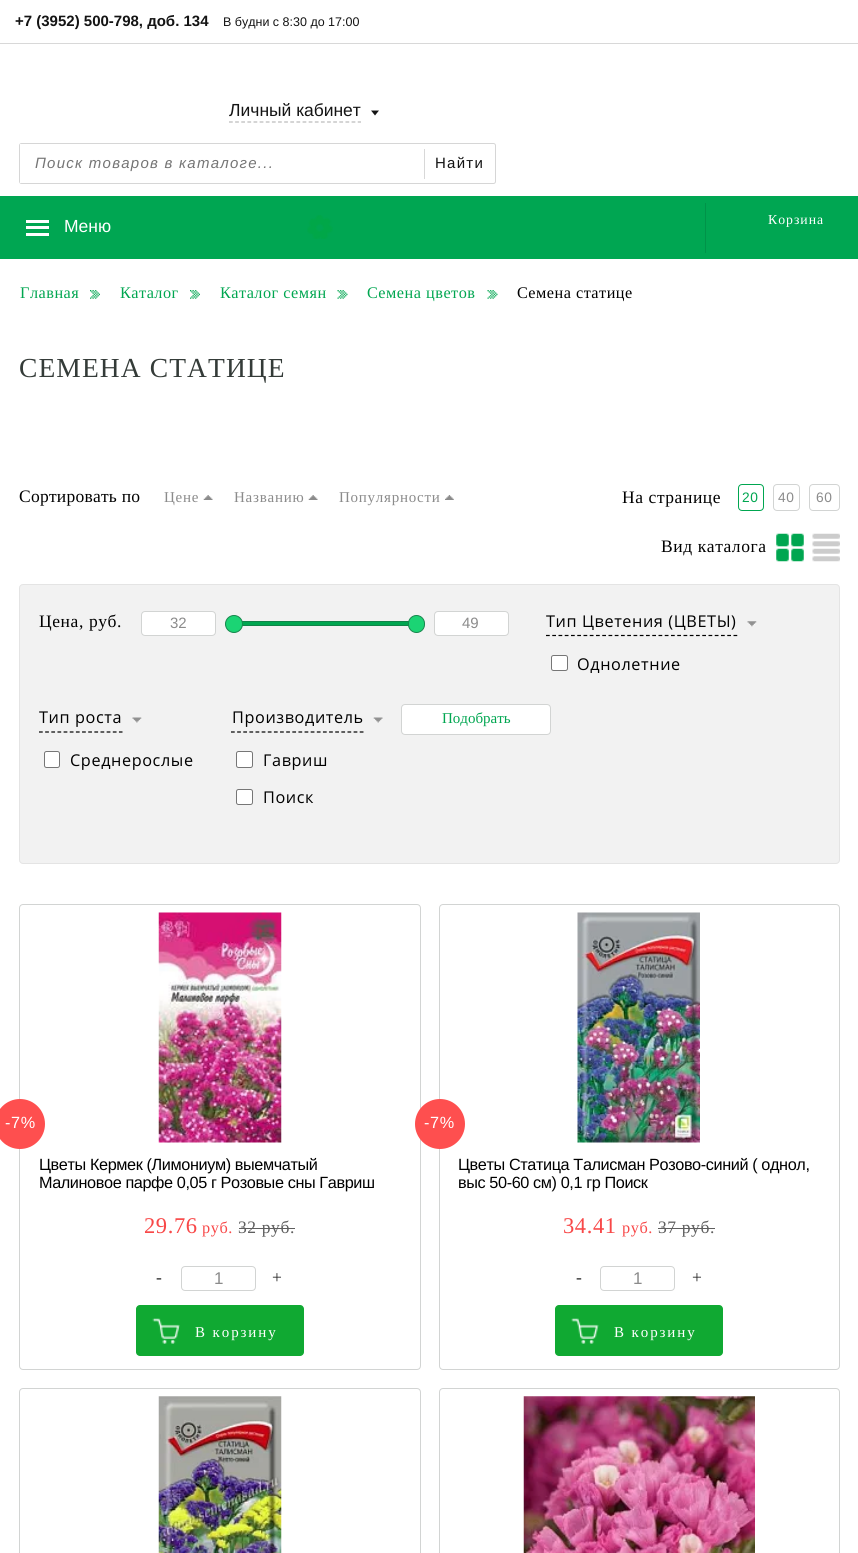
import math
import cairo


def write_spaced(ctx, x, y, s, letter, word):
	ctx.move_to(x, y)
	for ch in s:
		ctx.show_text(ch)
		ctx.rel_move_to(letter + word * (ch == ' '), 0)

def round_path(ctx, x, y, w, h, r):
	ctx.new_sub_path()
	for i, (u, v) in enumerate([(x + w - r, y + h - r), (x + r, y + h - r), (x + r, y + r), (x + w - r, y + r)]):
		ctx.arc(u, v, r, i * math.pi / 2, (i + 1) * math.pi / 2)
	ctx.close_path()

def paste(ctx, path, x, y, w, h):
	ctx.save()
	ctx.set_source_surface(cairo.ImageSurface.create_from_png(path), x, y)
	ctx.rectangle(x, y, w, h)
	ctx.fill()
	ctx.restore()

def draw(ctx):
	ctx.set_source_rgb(1, 1, 1)
	ctx.paint()
	ctx.set_source_rgb(0.847, 0.847, 0.847)
	ctx.rectangle(0, 43, 858, 1)
	ctx.fill()
	ctx.select_font_face('Liberation Sans', cairo.FONT_SLANT_NORMAL, cairo.FONT_WEIGHT_BOLD)
	ctx.set_font_size(15)
	ctx.set_source_rgb(0.082, 0.082, 0.082)
	ctx.move_to(15, 26)
	ctx.show_text('+7 (3952) 500-798, доб. 134')
	ctx.select_font_face('Liberation Sans')
	ctx.set_font_size(12.5)
	ctx.move_to(223, 26)
	ctx.show_text('В будни с 8:30 до 17:00')
	ctx.new_path()
	ctx.move_to(229, 122)
	ctx.line_to(361, 122)
	ctx.set_source_rgb(0.725, 0.725, 0.725)
	ctx.set_line_width(1.2)
	ctx.set_dash([3.75, 2.38])
	ctx.stroke()
	ctx.set_font_size(17.5)
	ctx.set_source_rgb(0.082, 0.082, 0.082)
	ctx.move_to(229, 116)
	ctx.show_text('Личный кабинет')
	ctx.new_path()
	ctx.move_to(371, 110.5)
	ctx.line_to(379, 110.5)
	ctx.line_to(375, 115.5)
	ctx.close_path()
	ctx.fill()
	round_path(ctx, 19.5, 143.5, 476, 40, 2)
	ctx.set_source_rgb(0.839, 0.839, 0.839)
	ctx.set_line_width(1)
	ctx.set_dash([])
	ctx.stroke()
	ctx.set_source_rgb(1, 1, 1)
	ctx.rectangle(20, 144, 1, 39)
	ctx.fill()
	ctx.select_font_face('Liberation Sans', cairo.FONT_SLANT_ITALIC)
	ctx.set_font_size(15)
	ctx.set_source_rgb(0.459, 0.459, 0.459)
	write_spaced(ctx, 35, 168, 'Поиск товаров в каталоге...', 1.25, 0)
	ctx.set_source_rgb(0.847, 0.847, 0.847)
	ctx.rectangle(424, 149, 1, 30)
	ctx.fill()
	ctx.select_font_face('Liberation Sans')
	ctx.set_source_rgb(0.082, 0.082, 0.082)
	write_spaced(ctx, 435, 168, 'Найти', 1.25, 0)
	ctx.set_source_rgb(0, 0.651, 0.322)
	ctx.rectangle(0, 196, 858, 63)
	ctx.fill()
	ctx.set_source_rgb(1, 1, 1)
	ctx.rectangle(26, 220, 23, 3)
	ctx.rectangle(26, 226, 23, 3)
	ctx.rectangle(26, 233, 23, 3)
	ctx.fill()
	ctx.set_font_size(17.5)
	ctx.move_to(64, 232)
	ctx.show_text('Меню')
	paste(ctx, 'media/1.png', 307, 215, 26, 24)
	ctx.set_source_rgb(0, 0.576, 0.286)
	ctx.rectangle(705, 203, 1, 50)
	ctx.fill()
	ctx.select_font_face('Liberation Serif')
	ctx.set_font_size(13.75)
	ctx.set_source_rgb(1, 1, 1)
	write_spaced(ctx, 768, 224, 'Корзина', 1, 0)
	ctx.set_font_size(16.25)
	ctx.set_source_rgb(0, 0.651, 0.314)
	write_spaced(ctx, 20, 298, 'Главная', 0.5, 0)
	paste(ctx, 'media/2.png', 90, 290, 10, 9)
	write_spaced(ctx, 120, 298, 'Каталог', 0.5, 0)
	paste(ctx, 'media/2.png', 190, 290, 10, 9)
	write_spaced(ctx, 220, 298, 'Каталог семян', 0.5, 0)
	paste(ctx, 'media/3.png', 337, 290, 11, 9)
	write_spaced(ctx, 367, 298, 'Семена цветов', 0.5, 0)
	paste(ctx, 'media/4.png', 487, 290, 11, 9)
	ctx.set_source_rgb(0, 0, 0)
	write_spaced(ctx, 517, 298, 'Семена статице', 0.5, 0)
	ctx.set_font_size(27.5)
	ctx.set_source_rgb(0.204, 0.231, 0.22)
	write_spaced(ctx, 19, 377, 'СЕМЕНА СТАТИЦЕ', 1.1, 0)
	ctx.set_font_size(17.5)
	ctx.set_source_rgb(0, 0, 0)
	write_spaced(ctx, 19, 502, 'Сортировать по', 0.25, 0)
	ctx.set_font_size(15)
	ctx.set_source_rgb(0.545, 0.545, 0.545)
	write_spaced(ctx, 164, 502, 'Цене', 0.75, 0)
	paste(ctx, 'media/5.png', 203, 495, 10, 5)
	write_spaced(ctx, 234, 502, 'Названию', 0.75, 0)
	paste(ctx, 'media/5.png', 308, 495, 10, 5)
	write_spaced(ctx, 339, 502, 'Популярности', 0.75, 0)
	paste(ctx, 'media/6.png', 445, 495, 9, 5)
	ctx.set_font_size(17.5)
	ctx.set_source_rgb(0, 0, 0)
	write_spaced(ctx, 622, 503, 'На странице', 0.6, 0)
	round_path(ctx, 738.5, 484.5, 25, 26, 3.5)
	ctx.set_source_rgb(0, 0.651, 0.314)
	ctx.stroke()
	ctx.select_font_face('Liberation Sans')
	ctx.set_font_size(13.75)
	write_spaced(ctx, 742, 502, '20', 0.6, 0)
	round_path(ctx, 773.5, 484.5, 26, 26, 3.5)
	ctx.set_source_rgb(0.824, 0.831, 0.827)
	ctx.stroke()
	ctx.set_source_rgb(0.545, 0.545, 0.545)
	write_spaced(ctx, 778, 502, '40', 0.6, 0)
	round_path(ctx, 809.5, 484.5, 30, 26, 3.5)
	ctx.set_source_rgb(0.824, 0.831, 0.827)
	ctx.stroke()
	ctx.set_source_rgb(0.545, 0.545, 0.545)
	write_spaced(ctx, 816, 502, '60', 0.6, 0)
	ctx.select_font_face('Liberation Serif')
	ctx.set_font_size(17.5)
	ctx.set_source_rgb(0, 0, 0)
	write_spaced(ctx, 661, 552, 'Вид каталога', 0.6, 0)
	paste(ctx, 'media/7.png', 776, 533, 28, 29)
	paste(ctx, 'media/8.png', 812, 533, 28, 29)
	ctx.set_source_rgb(0.949, 0.949, 0.949)
	round_path(ctx, 19.5, 584.5, 820, 279, 3.5)
	ctx.fill_preserve()
	ctx.set_source_rgb(0.894, 0.894, 0.894)
	ctx.stroke()
	ctx.set_source_rgb(0, 0, 0)
	write_spaced(ctx, 39, 627, 'Цена, руб.', 0.6, 0)
	ctx.set_source_rgb(1, 1, 1)
	round_path(ctx, 141.5, 611.5, 74, 24, 3.5)
	ctx.fill_preserve()
	ctx.set_source_rgb(0.824, 0.831, 0.827)
	ctx.stroke()
	ctx.select_font_face('Liberation Sans')
	ctx.set_font_size(15)
	ctx.set_source_rgb(0.545, 0.545, 0.545)
	ctx.move_to(170, 628)
	ctx.show_text('32')
	ctx.set_source_rgb(0, 0.651, 0.314)
	ctx.rectangle(234.5, 621.5, 181, 4)
	ctx.fill_preserve()
	ctx.set_source_rgb(0.067, 0.514, 0.282)
	ctx.stroke()
	ctx.set_source_rgb(0.106, 0.831, 0.455)
	ctx.arc(234, 624, 8.5, 0, 2 * math.pi)
	ctx.fill_preserve()
	ctx.set_source_rgb(0.09, 0.525, 0.302)
	ctx.stroke()
	ctx.set_source_rgb(0.106, 0.831, 0.455)
	round_path(ctx, 408.5, 615.5, 16, 17, 8)
	ctx.fill_preserve()
	ctx.set_source_rgb(0.09, 0.525, 0.302)
	ctx.stroke()
	ctx.set_source_rgb(1, 1, 1)
	round_path(ctx, 434.5, 611.5, 74, 24, 3.5)
	ctx.fill_preserve()
	ctx.set_source_rgb(0.824, 0.831, 0.827)
	ctx.stroke()
	ctx.set_source_rgb(0.545, 0.545, 0.545)
	ctx.move_to(462, 628)
	ctx.show_text('49')
	ctx.new_path()
	ctx.move_to(546, 635.5)
	ctx.line_to(737.5, 635.5)
	ctx.set_source_rgb(0, 0, 0)
	ctx.set_line_width(1.2)
	ctx.set_dash([3.75, 2.5])
	ctx.stroke()
	ctx.select_font_face('Open Sans')
	ctx.set_font_size(16.25)
	write_spaced(ctx, 546, 627, 'Тип Цветения (ЦВЕТЫ)', 0.6, 0)
	paste(ctx, 'media/9.png', 747, 621, 10, 6)
	ctx.set_source_rgb(1, 1, 1)
	round_path(ctx, 551.5, 655.5, 16, 15, 2)
	ctx.fill_preserve()
	ctx.set_source_rgb(0.463, 0.463, 0.463)
	ctx.set_line_width(1)
	ctx.set_dash([])
	ctx.stroke()
	ctx.set_source_rgb(0, 0, 0)
	write_spaced(ctx, 577, 670, 'Однолетние', 0.6, 0)
	ctx.new_path()
	ctx.move_to(39, 732)
	ctx.line_to(122.5, 732)
	ctx.set_line_width(1.2)
	ctx.set_dash([3.75, 2.4])
	ctx.stroke()
	write_spaced(ctx, 39, 723, 'Тип роста', 0.6, 0)
	paste(ctx, 'media/10.png', 132, 717, 10, 6)
	ctx.set_source_rgb(1, 1, 1)
	round_path(ctx, 44.5, 751.5, 15, 16, 2)
	ctx.fill_preserve()
	ctx.set_source_rgb(0.463, 0.463, 0.463)
	ctx.set_line_width(1)
	ctx.set_dash([])
	ctx.stroke()
	ctx.set_source_rgb(0, 0, 0)
	write_spaced(ctx, 70, 766, 'Среднерослые', 0.6, 0)
	ctx.new_path()
	ctx.move_to(231, 732)
	ctx.line_to(364, 732)
	ctx.set_line_width(1.2)
	ctx.set_dash([3.75, 2.38])
	ctx.stroke()
	write_spaced(ctx, 232, 723, 'Производитель', 0.6, 0)
	paste(ctx, 'media/11.png', 373, 717, 10, 6)
	ctx.set_source_rgb(1, 1, 1)
	round_path(ctx, 236.5, 751.5, 16, 16, 2)
	ctx.fill_preserve()
	ctx.set_source_rgb(0.463, 0.463, 0.463)
	ctx.set_line_width(1)
	ctx.set_dash([])
	ctx.stroke()
	ctx.set_source_rgb(0, 0, 0)
	write_spaced(ctx, 263, 766, 'Гавриш', 0.6, 0)
	ctx.set_source_rgb(1, 1, 1)
	round_path(ctx, 236.5, 789.5, 16, 15, 2)
	ctx.fill_preserve()
	ctx.set_source_rgb(0.463, 0.463, 0.463)
	ctx.stroke()
	ctx.set_source_rgb(0, 0, 0)
	write_spaced(ctx, 263, 803, 'Поиск', 0.6, 0)
	ctx.set_source_rgb(1, 1, 1)
	round_path(ctx, 401.5, 704.5, 149, 30, 3.5)
	ctx.fill_preserve()
	ctx.set_source_rgb(0.824, 0.831, 0.827)
	ctx.stroke()
	ctx.select_font_face('Liberation Serif')
	ctx.set_font_size(15)
	ctx.set_source_rgb(0, 0.651, 0.314)
	ctx.move_to(442, 723)
	ctx.show_text('Подобрать')
	round_path(ctx, 19.5, 904.5, 401, 465, 3.5)
	ctx.set_source_rgb(0.824, 0.831, 0.827)
	ctx.stroke()
	ctx.set_source_rgb(0.996, 0.31, 0.31)
	ctx.arc(20, 1124, 25, 0, 2 * math.pi)
	ctx.fill()
	ctx.select_font_face('Liberation Sans')
	ctx.set_font_size(16.25)
	ctx.set_source_rgb(1, 1, 1)
	write_spaced(ctx, 5, 1128, '-7%', 0.6, 0)
	paste(ctx, 'media/12.png', 158, 912, 124, 231)
	ctx.set_source_rgb(0, 0, 0)
	write_spaced(ctx, 39, 1170, 'Цветы Кермек (Лимониум) выемчатый', -0.4, 0)
	write_spaced(ctx, 39, 1188, 'Малиновое парфе 0,05 г Розовые сны Гавриш', -0.4, 0)
	ctx.select_font_face('Liberation Serif')
	ctx.set_font_size(22.5)
	ctx.set_source_rgb(0.969, 0.282, 0.282)
	write_spaced(ctx, 144, 1233, '29.76', 0.6, 0)
	ctx.set_font_size(16.25)
	write_spaced(ctx, 202, 1233, 'руб.', 0.6, 0)
	ctx.set_font_size(17.5)
	ctx.set_source_rgb(0.369, 0.369, 0.369)
	write_spaced(ctx, 238, 1233, '32 руб.', 0.6, 0)
	ctx.rectangle(239, 1228, 56, 1)
	ctx.fill()
	ctx.set_source_rgb(0.161, 0.161, 0.161)
	write_spaced(ctx, 156, 1283, '-', 0.6, 0)
	round_path(ctx, 181.5, 1266.5, 74, 24, 3.5)
	ctx.set_source_rgb(0.824, 0.831, 0.827)
	ctx.stroke()
	ctx.select_font_face('Liberation Sans')
	ctx.set_font_size(17)
	ctx.set_source_rgb(0.545, 0.545, 0.545)
	ctx.move_to(214, 1284)
	ctx.show_text('1')
	ctx.select_font_face('Liberation Serif')
	ctx.set_font_size(17.5)
	ctx.set_source_rgb(0.161, 0.161, 0.161)
	write_spaced(ctx, 272, 1283, '+', 0.6, 0)
	ctx.set_source_rgb(0.063, 0.663, 0.196)
	round_path(ctx, 136, 1305, 168, 51, 4)
	ctx.fill()
	paste(ctx, 'media/13.png', 152, 1318, 28, 26)
	ctx.set_font_size(15)
	ctx.set_source_rgb(1, 1, 1)
	write_spaced(ctx, 195, 1337, 'В корзину', 1.9, 0)
	round_path(ctx, 439.5, 904.5, 400, 465, 3.5)
	ctx.set_source_rgb(0.824, 0.831, 0.827)
	ctx.stroke()
	ctx.set_source_rgb(0.996, 0.31, 0.31)
	ctx.arc(440, 1124, 25, 0, 2 * math.pi)
	ctx.fill()
	ctx.select_font_face('Liberation Sans')
	ctx.set_font_size(16.25)
	ctx.set_source_rgb(1, 1, 1)
	write_spaced(ctx, 424, 1128, '-7%', 0.6, 0)
	paste(ctx, 'media/14.png', 577, 912, 123, 231)
	ctx.set_source_rgb(0, 0, 0)
	write_spaced(ctx, 458, 1170, 'Цветы Статица Талисман Розово-синий ( однол,', -0.4, 0)
	write_spaced(ctx, 458, 1188, 'выс 50-60 см) 0,1 гр Поиск', -0.4, 0)
	ctx.select_font_face('Liberation Serif')
	ctx.set_font_size(22.5)
	ctx.set_source_rgb(0.969, 0.282, 0.282)
	write_spaced(ctx, 563, 1233, '34.41', 0.6, 0)
	ctx.set_font_size(16.25)
	write_spaced(ctx, 622, 1233, 'руб.', 0.6, 0)
	ctx.set_font_size(17.5)
	ctx.set_source_rgb(0.369, 0.369, 0.369)
	write_spaced(ctx, 658, 1233, '37 руб.', 0.6, 0)
	ctx.rectangle(658, 1228, 57, 1)
	ctx.fill()
	ctx.set_source_rgb(0.161, 0.161, 0.161)
	write_spaced(ctx, 576, 1283, '-', 0.6, 0)
	round_path(ctx, 600.5, 1266.5, 74, 24, 3.5)
	ctx.set_source_rgb(0.824, 0.831, 0.827)
	ctx.stroke()
	ctx.select_font_face('Liberation Sans')
	ctx.set_font_size(17)
	ctx.set_source_rgb(0.545, 0.545, 0.545)
	ctx.move_to(633, 1284)
	ctx.show_text('1')
	ctx.select_font_face('Liberation Serif')
	ctx.set_font_size(17.5)
	ctx.set_source_rgb(0.161, 0.161, 0.161)
	write_spaced(ctx, 692, 1283, '+', 0.6, 0)
	ctx.set_source_rgb(0.063, 0.663, 0.196)
	round_path(ctx, 555, 1305, 168, 51, 4)
	ctx.fill()
	paste(ctx, 'media/15.png', 571, 1318, 28, 26)
	ctx.set_font_size(15)
	ctx.set_source_rgb(1, 1, 1)
	write_spaced(ctx, 614, 1337, 'В корзину', 1.9, 0)
	round_path(ctx, 19.5, 1388.5, 401, 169, 3.5)
	ctx.set_source_rgb(0.824, 0.831, 0.827)
	ctx.stroke()
	paste(ctx, 'media/16.png', 158, 1396, 124, 157)
	round_path(ctx, 439.5, 1388.5, 400, 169, 3.5)
	ctx.stroke()
	paste(ctx, 'media/17.png', 523, 1396, 232, 157)


surface = cairo.ImageSurface(cairo.FORMAT_RGB24, 858, 1553)
ctx = cairo.Context(surface)
options = cairo.FontOptions()
options.set_hint_metrics(cairo.HINT_METRICS_OFF)
options.set_hint_style(cairo.HINT_STYLE_NONE)
ctx.set_font_options(options)
ctx.set_miter_limit(4)
draw(ctx)
surface.write_to_png('image.png')
